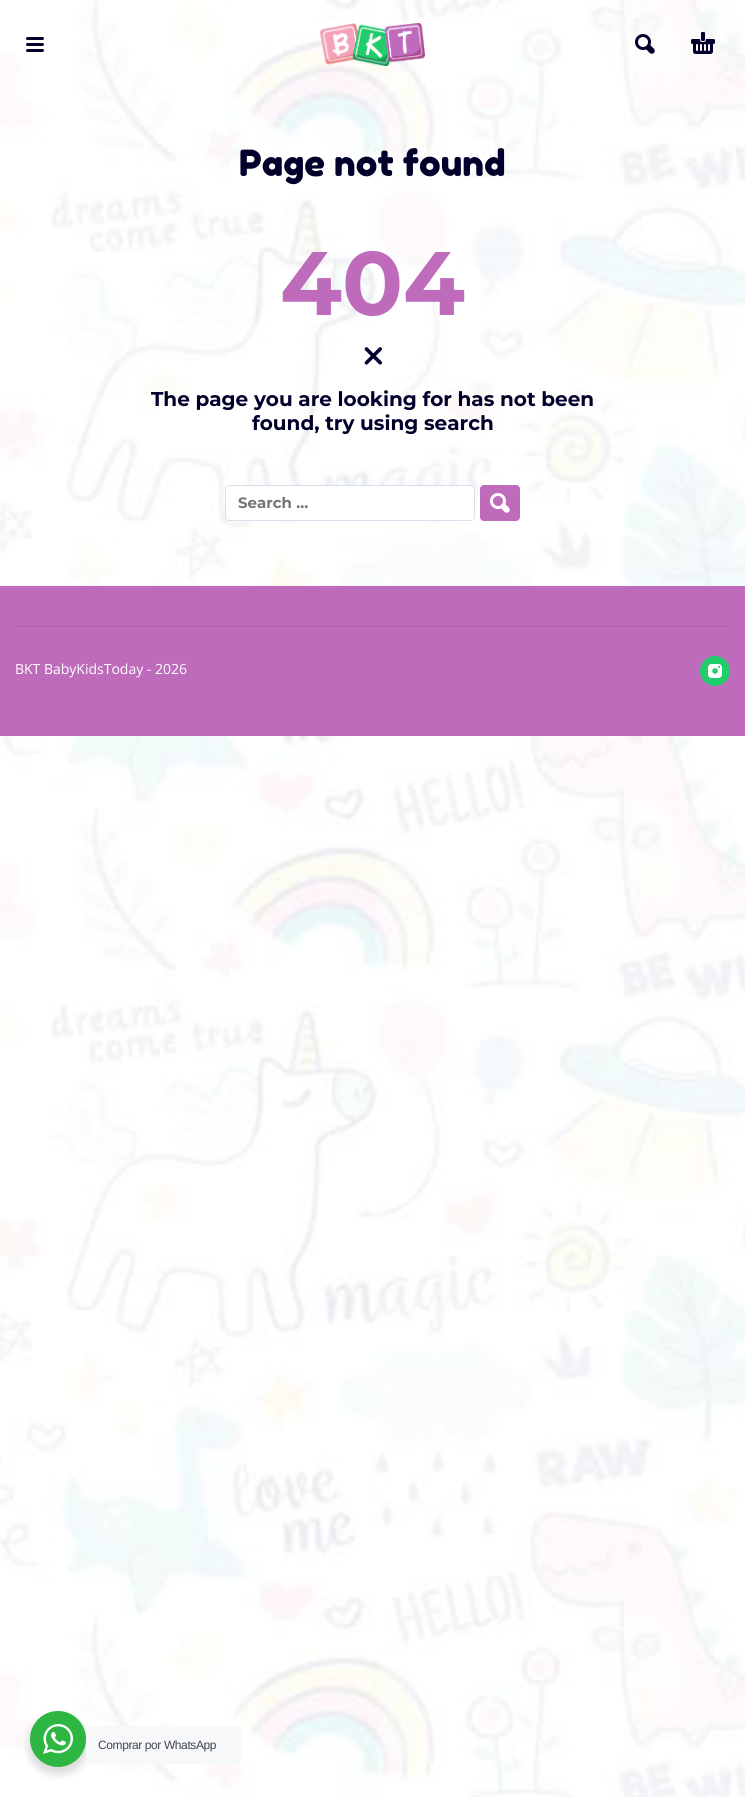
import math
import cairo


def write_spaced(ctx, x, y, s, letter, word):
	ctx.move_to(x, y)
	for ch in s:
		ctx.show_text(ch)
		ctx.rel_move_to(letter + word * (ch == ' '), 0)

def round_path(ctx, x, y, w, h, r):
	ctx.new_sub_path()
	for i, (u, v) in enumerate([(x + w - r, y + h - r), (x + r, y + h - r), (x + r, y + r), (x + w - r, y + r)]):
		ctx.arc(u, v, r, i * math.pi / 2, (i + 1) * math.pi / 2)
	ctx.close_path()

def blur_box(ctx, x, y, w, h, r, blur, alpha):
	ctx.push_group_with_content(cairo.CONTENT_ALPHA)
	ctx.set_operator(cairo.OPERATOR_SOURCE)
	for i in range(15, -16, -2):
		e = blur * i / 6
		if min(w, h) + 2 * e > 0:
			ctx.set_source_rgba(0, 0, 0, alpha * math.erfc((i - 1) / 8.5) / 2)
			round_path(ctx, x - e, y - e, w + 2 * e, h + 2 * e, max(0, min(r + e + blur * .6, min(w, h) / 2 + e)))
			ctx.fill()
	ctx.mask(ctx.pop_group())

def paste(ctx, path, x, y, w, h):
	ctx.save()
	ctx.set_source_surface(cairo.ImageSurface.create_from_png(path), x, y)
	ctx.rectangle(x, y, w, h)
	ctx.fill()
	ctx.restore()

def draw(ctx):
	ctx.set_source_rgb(1, 1, 1)
	ctx.paint()
	paste(ctx, 'media/1.png', 0, 0, 745, 1797)
	paste(ctx, 'media/2.png', 26, 37, 18, 15)
	paste(ctx, 'media/3.png', 320, 23, 105, 43)
	paste(ctx, 'media/4.png', 635, 34, 20, 20)
	paste(ctx, 'media/5.png', 691, 32, 24, 22)
	ctx.select_font_face('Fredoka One')
	ctx.set_font_size(36)
	ctx.set_source_rgb(0, 0, 0.165)
	ctx.move_to(239, 176)
	ctx.show_text('Page not found')
	ctx.select_font_face('Montserrat', cairo.FONT_SLANT_NORMAL, cairo.FONT_WEIGHT_BOLD)
	ctx.set_font_size(90)
	ctx.set_source_rgb(0.749, 0.42, 0.733)
	ctx.move_to(280, 315)
	ctx.show_text('404')
	paste(ctx, 'media/6.png', 364, 347, 18, 18)
	ctx.set_font_size(20)
	ctx.set_source_rgb(0, 0, 0.165)
	ctx.move_to(151, 406)
	ctx.show_text('The page you are looking for has not been')
	ctx.move_to(252, 430)
	ctx.show_text('found, try using search')
	ctx.set_source_rgb(1, 1, 1)
	round_path(ctx, 225.5, 485.5, 249, 35, 3.5)
	ctx.fill_preserve()
	ctx.set_source_rgb(0.835, 0.878, 0.925)
	ctx.set_line_width(1)
	ctx.stroke()
	ctx.set_font_size(15)
	ctx.set_source_rgb(0.459, 0.459, 0.459)
	ctx.move_to(238, 508)
	ctx.show_text('Search …')
	ctx.set_source_rgb(0.749, 0.42, 0.733)
	round_path(ctx, 480, 485, 40, 36, 4)
	ctx.fill()
	paste(ctx, 'media/7.png', 490, 493, 20, 20)
	ctx.rectangle(0, 586, 745, 150)
	ctx.fill()
	ctx.set_source_rgb(0.682, 0.38, 0.667)
	ctx.rectangle(15, 626, 715, 1)
	ctx.fill()
	ctx.select_font_face('Open Sans')
	ctx.set_font_size(14)
	ctx.set_source_rgb(1, 1, 1)
	ctx.move_to(15, 674)
	ctx.show_text('BKT BabyKidsToday - 2026')
	ctx.set_source_rgb(0.129, 0.8, 0.416)
	ctx.new_path()
	ctx.arc(715, 671, 15, 0, 2 * math.pi)
	ctx.fill()
	paste(ctx, 'media/8.png', 708, 664, 14, 14)
	ctx.set_source_rgb(0, 0, 0)
	blur_box(ctx, 28, 1715, 60, 60, 30, 4, 0.14)
	ctx.set_source_rgb(0.176, 0.718, 0.259)
	ctx.arc(58, 1739, 28, 0, 2 * math.pi)
	ctx.fill()
	paste(ctx, 'media/9.png', 43, 1724, 30, 30)
	ctx.set_source_rgb(0.961, 0.969, 0.976)
	round_path(ctx, 86, 1726, 156, 38, 4)
	ctx.fill()
	ctx.select_font_face('Liberation Sans')
	ctx.set_font_size(12)
	ctx.set_source_rgb(0.263, 0.278, 0.306)
	write_spaced(ctx, 98, 1749, 'Comprar por WhatsApp', -0.4, 0)


surface = cairo.ImageSurface(cairo.FORMAT_RGB24, 745, 1797)
ctx = cairo.Context(surface)
options = cairo.FontOptions()
options.set_hint_metrics(cairo.HINT_METRICS_OFF)
options.set_hint_style(cairo.HINT_STYLE_NONE)
ctx.set_font_options(options)
ctx.set_miter_limit(4)
draw(ctx)
surface.write_to_png('image.png')
